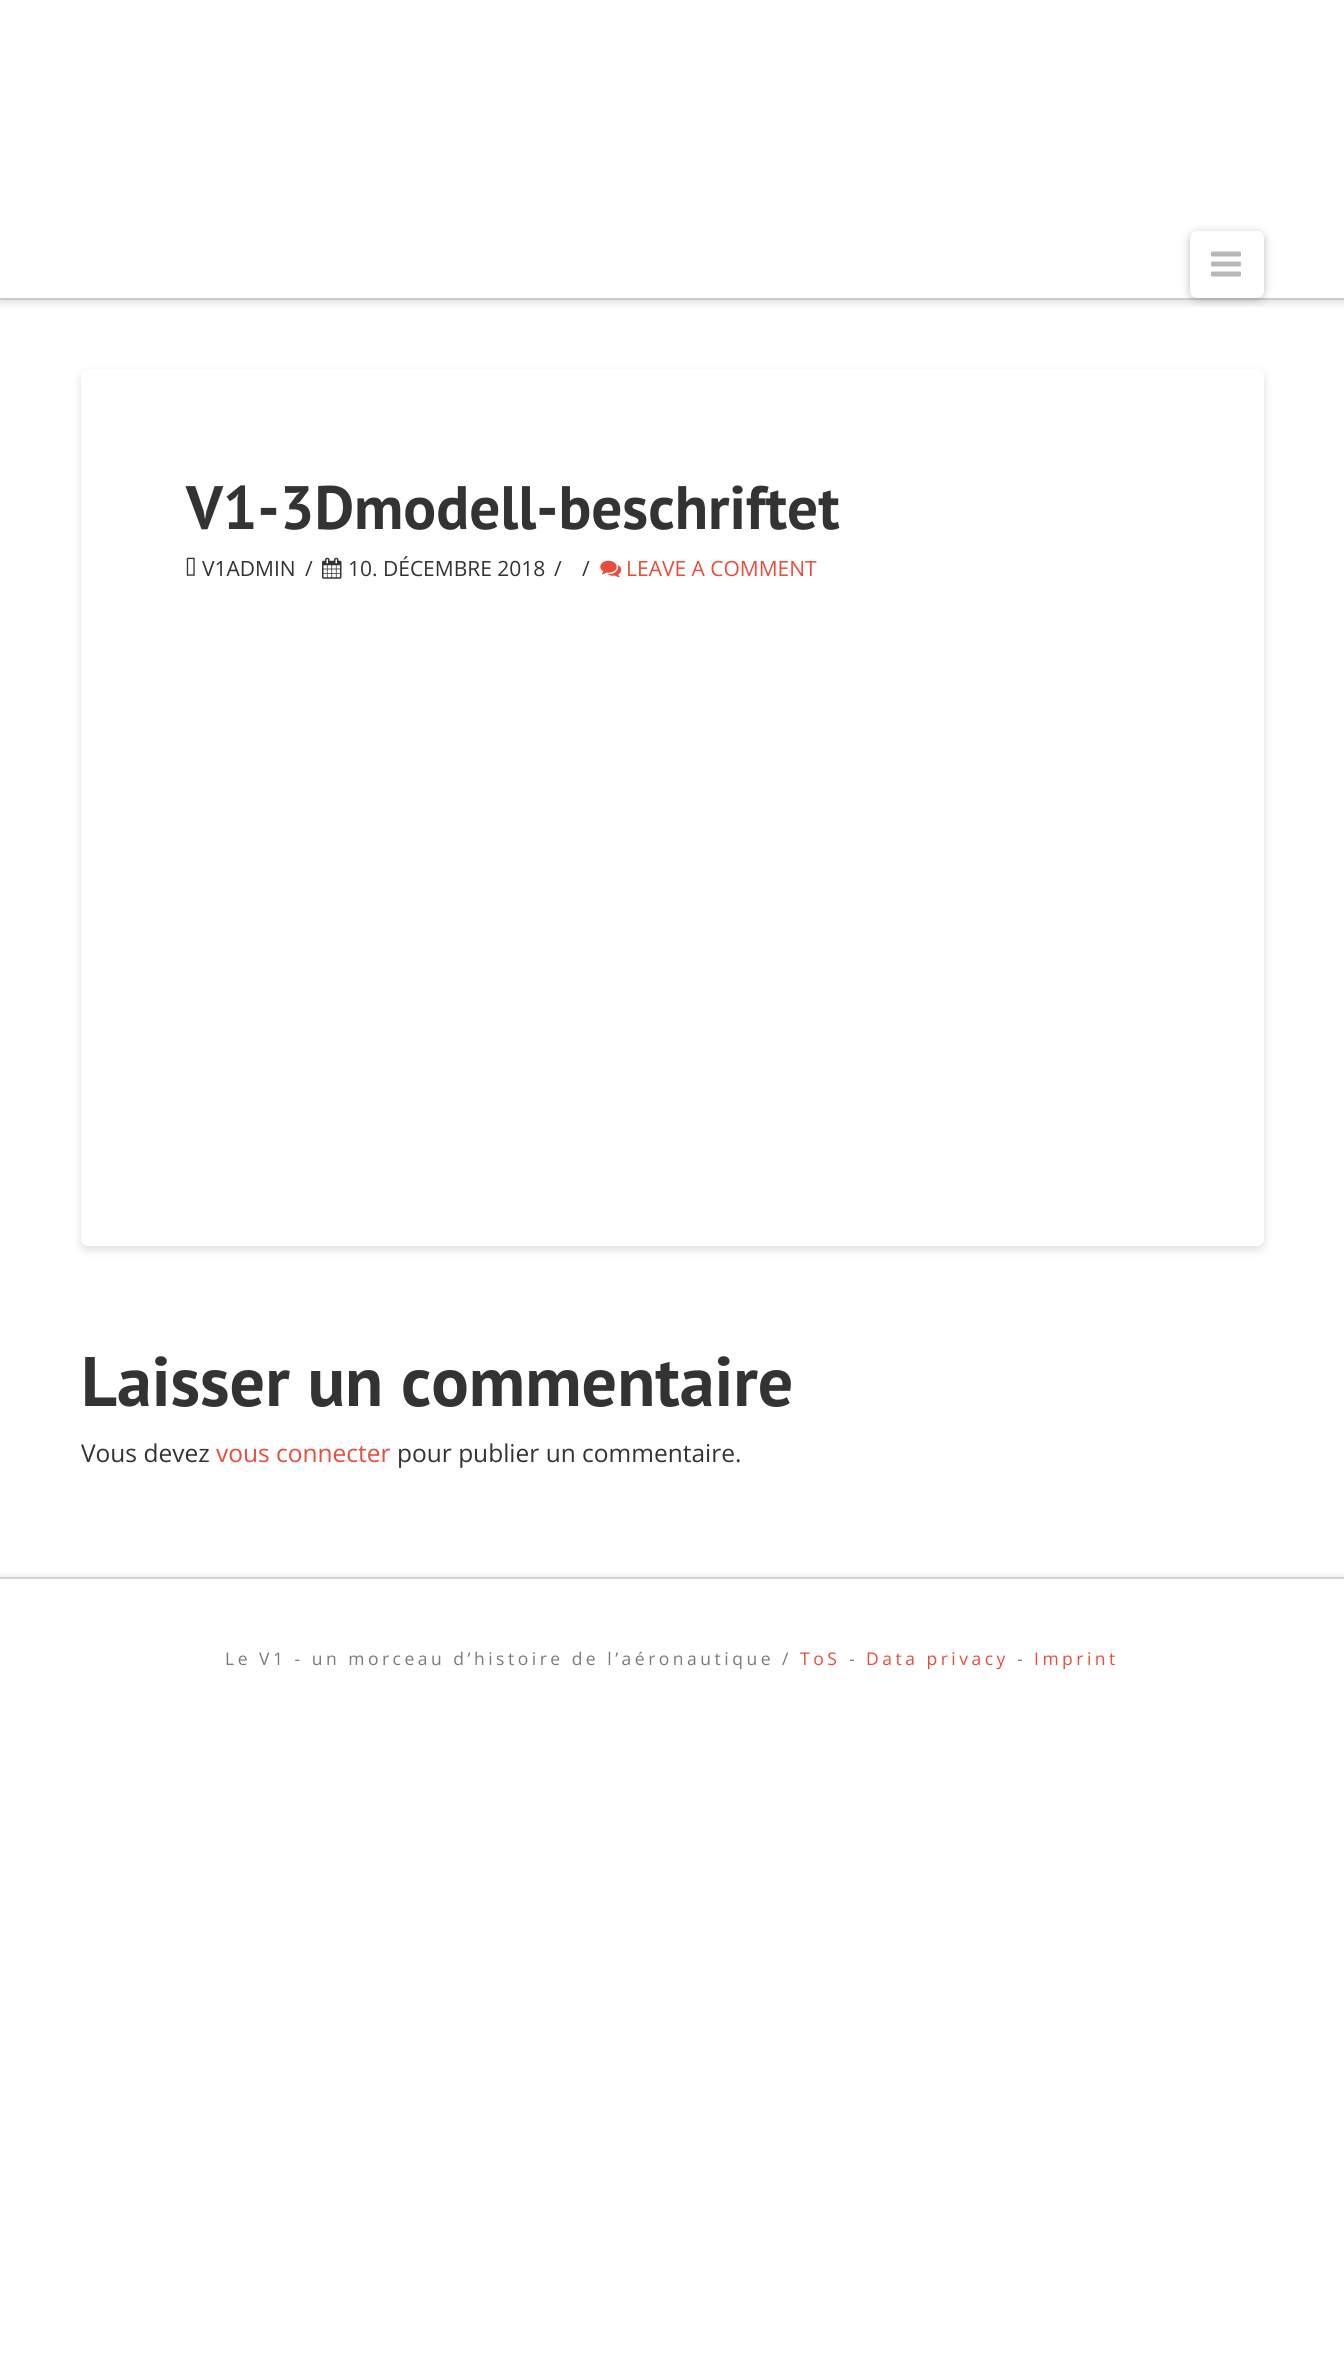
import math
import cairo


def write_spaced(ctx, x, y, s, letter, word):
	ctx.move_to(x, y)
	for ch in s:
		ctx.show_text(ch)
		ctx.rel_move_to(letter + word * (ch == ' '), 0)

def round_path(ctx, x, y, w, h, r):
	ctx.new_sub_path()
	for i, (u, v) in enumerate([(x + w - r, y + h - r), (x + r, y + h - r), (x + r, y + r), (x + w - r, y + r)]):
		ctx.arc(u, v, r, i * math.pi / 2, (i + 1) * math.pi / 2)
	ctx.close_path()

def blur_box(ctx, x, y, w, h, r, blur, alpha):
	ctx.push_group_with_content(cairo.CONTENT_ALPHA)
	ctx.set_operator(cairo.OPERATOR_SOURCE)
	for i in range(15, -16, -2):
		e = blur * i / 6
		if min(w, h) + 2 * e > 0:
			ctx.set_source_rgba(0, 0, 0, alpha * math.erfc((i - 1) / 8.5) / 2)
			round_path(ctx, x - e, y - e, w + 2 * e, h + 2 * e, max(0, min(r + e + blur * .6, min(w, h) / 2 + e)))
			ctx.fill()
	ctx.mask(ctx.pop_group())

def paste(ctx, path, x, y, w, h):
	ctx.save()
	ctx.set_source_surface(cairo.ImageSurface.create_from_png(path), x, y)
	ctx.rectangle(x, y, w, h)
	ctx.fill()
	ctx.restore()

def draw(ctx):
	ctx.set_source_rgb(1, 1, 1)
	ctx.paint()
	ctx.save()
	ctx.rectangle(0, 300, 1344, 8)
	ctx.clip()
	ctx.set_source_rgb(0, 0, 0)
	blur_box(ctx, 0, 4, 1344, 299, 0, 4.5, 0.13)
	ctx.restore()
	ctx.set_source_rgb(0.8, 0.8, 0.8)
	ctx.rectangle(0, 298, 1344, 2)
	ctx.fill()
	ctx.set_source_rgb(0, 0, 0)
	blur_box(ctx, 1190, 233, 74, 66, 7, 4.5, 0.25)
	ctx.set_source_rgb(1, 1, 1)
	round_path(ctx, 1190, 231, 74, 67, 7)
	ctx.fill()
	paste(ctx, 'media/1.png', 1211, 251, 30, 26)
	ctx.set_source_rgb(0, 0, 0)
	blur_box(ctx, 81, 373, 1183, 877, 7, 4.5, 0.13)
	ctx.set_source_rgb(1, 1, 1)
	round_path(ctx, 81, 369, 1183, 877, 7)
	ctx.fill()
	ctx.select_font_face('PT Sans', cairo.FONT_SLANT_NORMAL, cairo.FONT_WEIGHT_BOLD)
	ctx.set_font_size(61.25)
	ctx.set_source_rgb(0.2, 0.2, 0.2)
	ctx.move_to(186, 529)
	ctx.show_text('V1-3Dmodell-beschriftet')
	paste(ctx, 'media/2.png', 186, 557, 9, 19)
	ctx.select_font_face('Open Sans')
	ctx.set_font_size(21)
	ctx.move_to(202, 576)
	ctx.show_text('V1ADMIN')
	ctx.move_to(305, 576)
	ctx.show_text('/')
	paste(ctx, 'media/3.png', 322, 557, 20, 22)
	for x, y, s in [
		(348, 576, '10. DÉCEMBRE 2018'),
		(554, 576, '/'),
		(582, 576, '/'),
	]:
		ctx.move_to(x, y)
		ctx.show_text(s)
	paste(ctx, 'media/4.png', 600, 560, 22, 18)
	ctx.set_source_rgb(0.906, 0.298, 0.235)
	ctx.move_to(626, 576)
	ctx.show_text('LEAVE A COMMENT')
	ctx.select_font_face('PT Sans', cairo.FONT_SLANT_NORMAL, cairo.FONT_WEIGHT_BOLD)
	ctx.set_font_size(70)
	ctx.set_source_rgb(0.2, 0.2, 0.2)
	ctx.move_to(81, 1406)
	ctx.show_text('Laisser un commentaire')
	ctx.select_font_face('Open Sans')
	ctx.set_font_size(24.5)
	ctx.move_to(81, 1462)
	ctx.show_text('Vous devez')
	ctx.set_source_rgb(0.906, 0.298, 0.235)
	ctx.move_to(216, 1462)
	ctx.show_text('vous connecter')
	ctx.set_source_rgb(0.2, 0.2, 0.2)
	ctx.move_to(397, 1462)
	ctx.show_text('pour publier un commentaire.')
	ctx.set_source_rgb(0, 0, 0)
	blur_box(ctx, 0, 1575, 1344, 135, 0, 2, 0.07)
	ctx.set_source_rgb(1, 1, 1)
	ctx.rectangle(0, 1579, 1344, 133)
	ctx.fill()
	ctx.set_source_rgb(0.831, 0.831, 0.831)
	ctx.rectangle(0, 1577, 1344, 2)
	ctx.fill()
	ctx.set_font_size(17.5)
	ctx.set_source_rgb(0.478, 0.478, 0.478)
	write_spaced(ctx, 225, 1665, 'Le V1 - un morceau d’histoire de l’aéronautique /', 3.5, 0)
	ctx.set_source_rgb(0.906, 0.298, 0.235)
	write_spaced(ctx, 800, 1665, 'ToS', 3.5, 0)
	ctx.set_source_rgb(0.478, 0.478, 0.478)
	write_spaced(ctx, 849, 1665, '-', 3.5, 0)
	ctx.set_source_rgb(0.906, 0.298, 0.235)
	write_spaced(ctx, 866, 1665, 'Data privacy', 3.5, 0)
	ctx.set_source_rgb(0.478, 0.478, 0.478)
	write_spaced(ctx, 1017, 1665, '-', 3.5, 0)
	ctx.set_source_rgb(0.906, 0.298, 0.235)
	write_spaced(ctx, 1034, 1665, 'Imprint', 3.5, 0)


surface = cairo.ImageSurface(cairo.FORMAT_RGB24, 1344, 2371)
ctx = cairo.Context(surface)
options = cairo.FontOptions()
options.set_hint_metrics(cairo.HINT_METRICS_OFF)
options.set_hint_style(cairo.HINT_STYLE_NONE)
ctx.set_font_options(options)
ctx.set_miter_limit(4)
draw(ctx)
surface.write_to_png('image.png')
